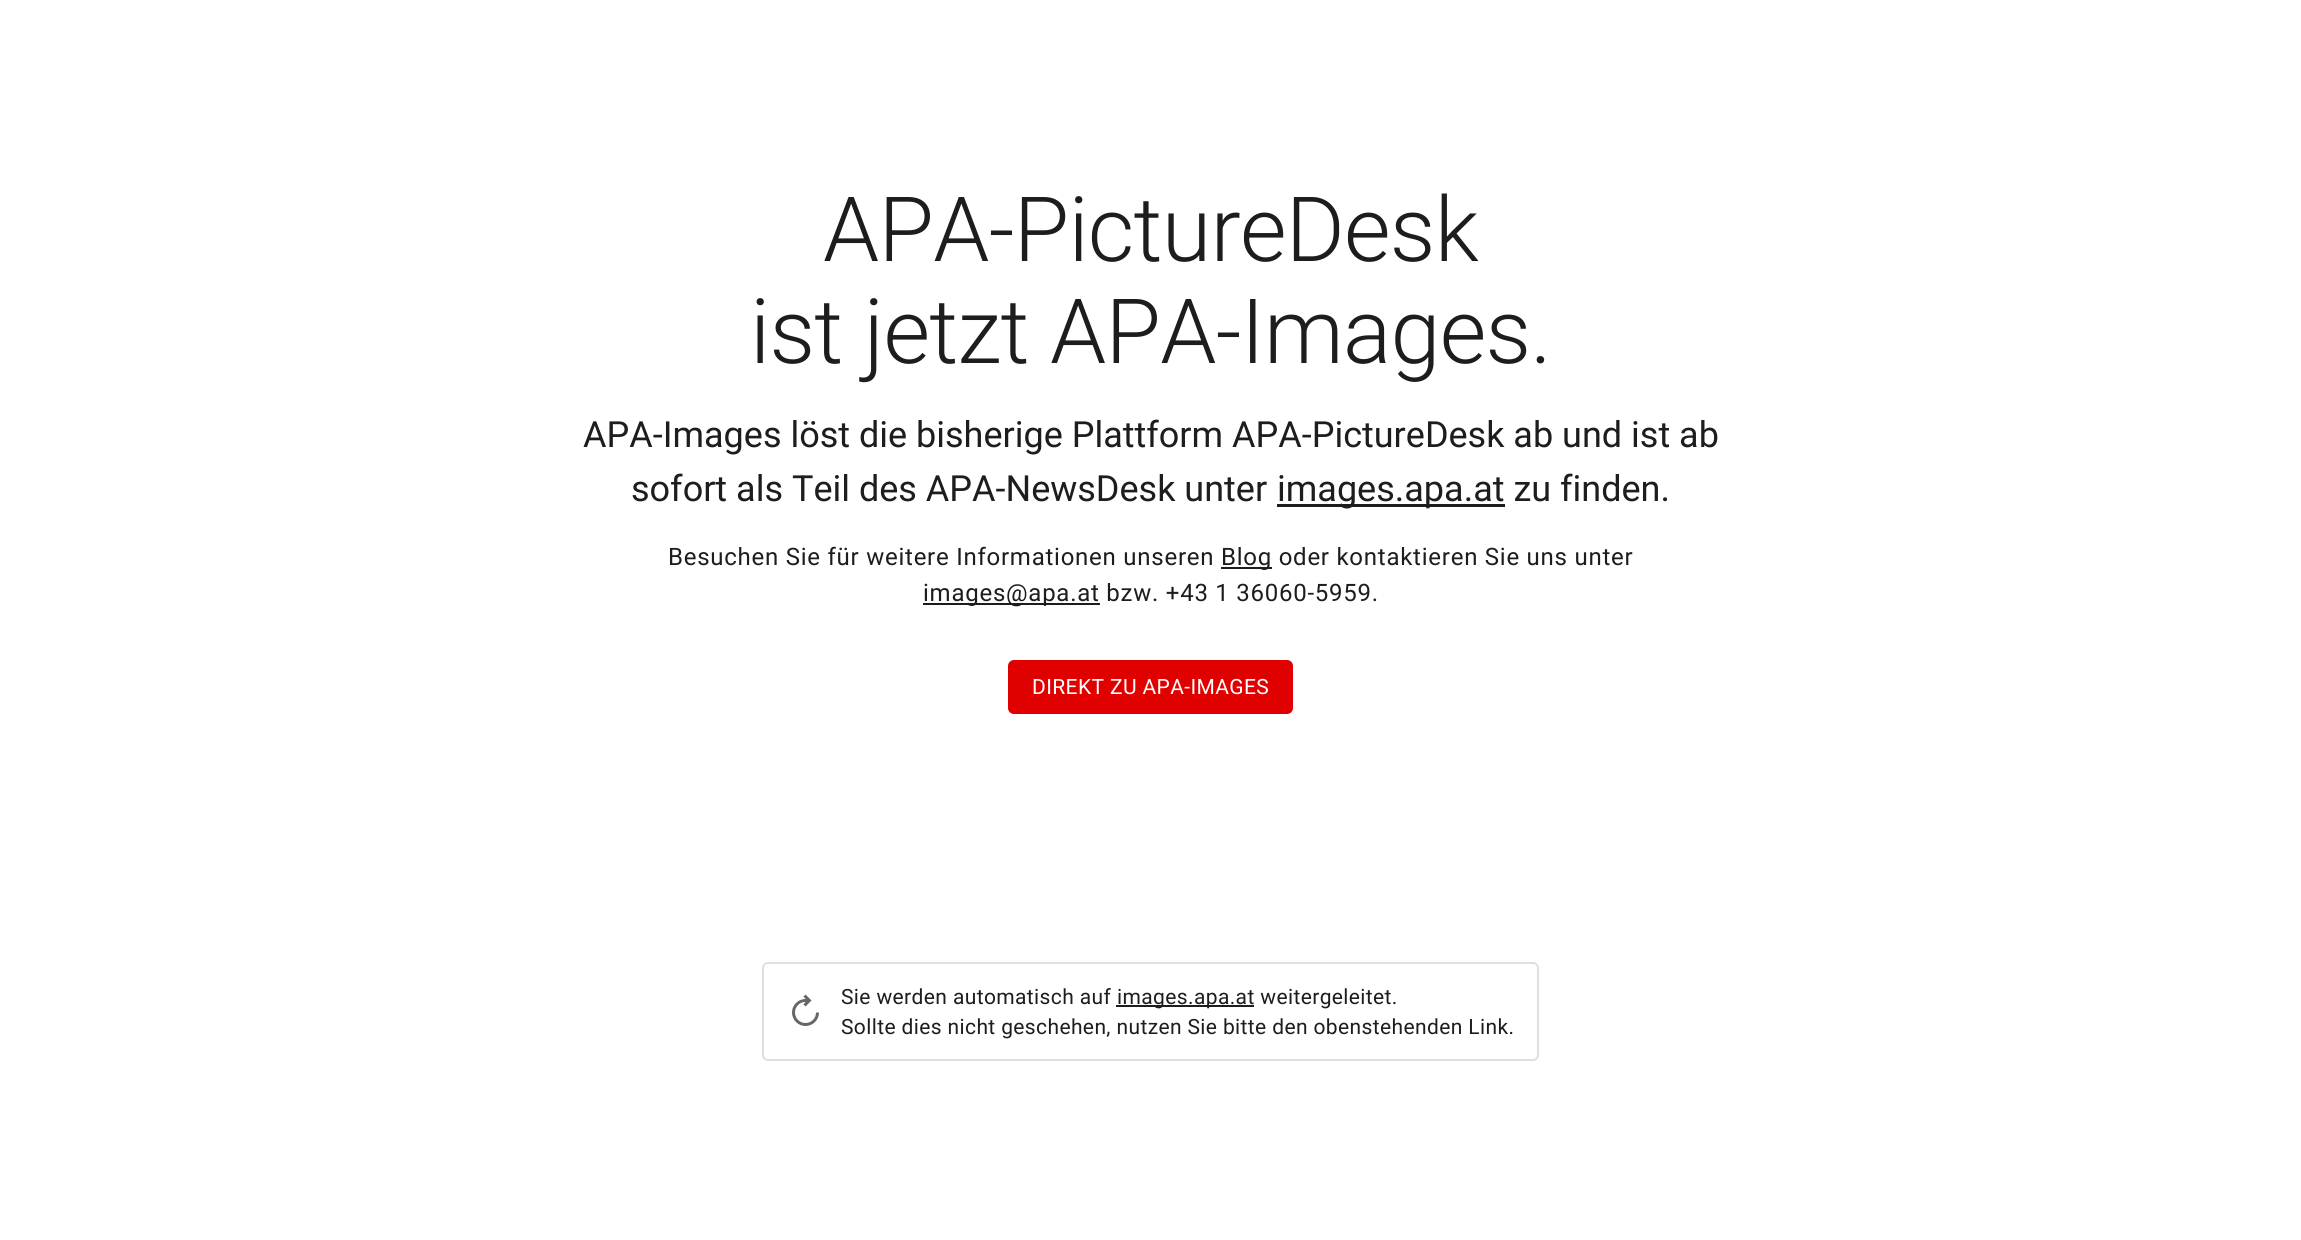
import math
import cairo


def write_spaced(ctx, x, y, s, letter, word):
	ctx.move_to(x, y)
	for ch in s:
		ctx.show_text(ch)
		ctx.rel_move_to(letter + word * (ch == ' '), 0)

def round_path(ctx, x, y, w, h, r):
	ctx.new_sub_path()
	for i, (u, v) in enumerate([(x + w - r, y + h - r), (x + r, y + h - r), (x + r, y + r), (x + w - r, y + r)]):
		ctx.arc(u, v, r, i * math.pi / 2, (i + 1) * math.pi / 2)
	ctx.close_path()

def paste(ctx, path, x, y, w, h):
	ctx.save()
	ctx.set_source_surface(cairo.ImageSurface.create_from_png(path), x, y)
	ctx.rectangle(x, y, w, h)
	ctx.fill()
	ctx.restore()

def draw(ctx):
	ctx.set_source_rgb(1, 1, 1)
	ctx.paint()
	ctx.select_font_face('Roboto Light')
	ctx.set_font_size(90)
	ctx.set_source_rgb(0.114, 0.114, 0.114)
	write_spaced(ctx, 823, 261, 'APA-PictureDesk', -0.75, 0)
	write_spaced(ctx, 750, 363, 'ist jetzt APA-Images.', -0.75, 0)
	ctx.select_font_face('Roboto')
	ctx.set_font_size(36)
	ctx.move_to(583, 447)
	ctx.show_text('APA-Images löst die bisherige Plattform APA-PictureDesk ab und ist ab')
	ctx.move_to(631, 501)
	ctx.show_text('sofort als Teil des APA-NewsDesk unter')
	ctx.rectangle(1277, 504, 228, 3)
	ctx.fill()
	ctx.move_to(1277, 501)
	ctx.show_text('images.apa.at zu finden.')
	ctx.set_font_size(24)
	write_spaced(ctx, 668, 565, 'Besuchen Sie für weitere Informationen unseren', 0.75, 0)
	ctx.rectangle(1221, 567, 51, 2)
	ctx.fill()
	write_spaced(ctx, 1221, 565, 'Blog oder kontaktieren Sie uns unter', 0.75, 0)
	ctx.rectangle(923, 603, 177, 2)
	ctx.fill()
	write_spaced(ctx, 923, 601, 'images@apa.at bzw. +43 1 36060-5959.', 0.75, 0)
	ctx.set_source_rgb(0.882, 0, 0)
	round_path(ctx, 1008, 660, 285, 54, 6)
	ctx.fill()
	ctx.set_font_size(21)
	ctx.set_source_rgb(1, 1, 1)
	write_spaced(ctx, 1032, 694, 'DIREKT ZU APA-IMAGES', 0.38, 0)
	paste(ctx, 'media/1.png', 792, 994, 27, 32)
	round_path(ctx, 763, 963, 775, 97, 5)
	ctx.set_source_rgb(0.878, 0.878, 0.878)
	ctx.stroke()
	ctx.set_source_rgb(0.114, 0.114, 0.114)
	write_spaced(ctx, 841, 1004, 'Sie werden automatisch auf', 0.38, 0)
	ctx.rectangle(1116, 1005, 138, 2)
	ctx.fill()
	write_spaced(ctx, 1117, 1004, 'images.apa.at weitergeleitet.', 0.38, 0)
	write_spaced(ctx, 841, 1034, 'Sollte dies nicht geschehen, nutzen Sie bitte den obenstehenden Link.', 0.38, 0)


surface = cairo.ImageSurface(cairo.FORMAT_RGB24, 2301, 1240)
ctx = cairo.Context(surface)
options = cairo.FontOptions()
options.set_hint_metrics(cairo.HINT_METRICS_OFF)
options.set_hint_style(cairo.HINT_STYLE_NONE)
ctx.set_font_options(options)
ctx.set_miter_limit(4)
draw(ctx)
surface.write_to_png('image.png')
